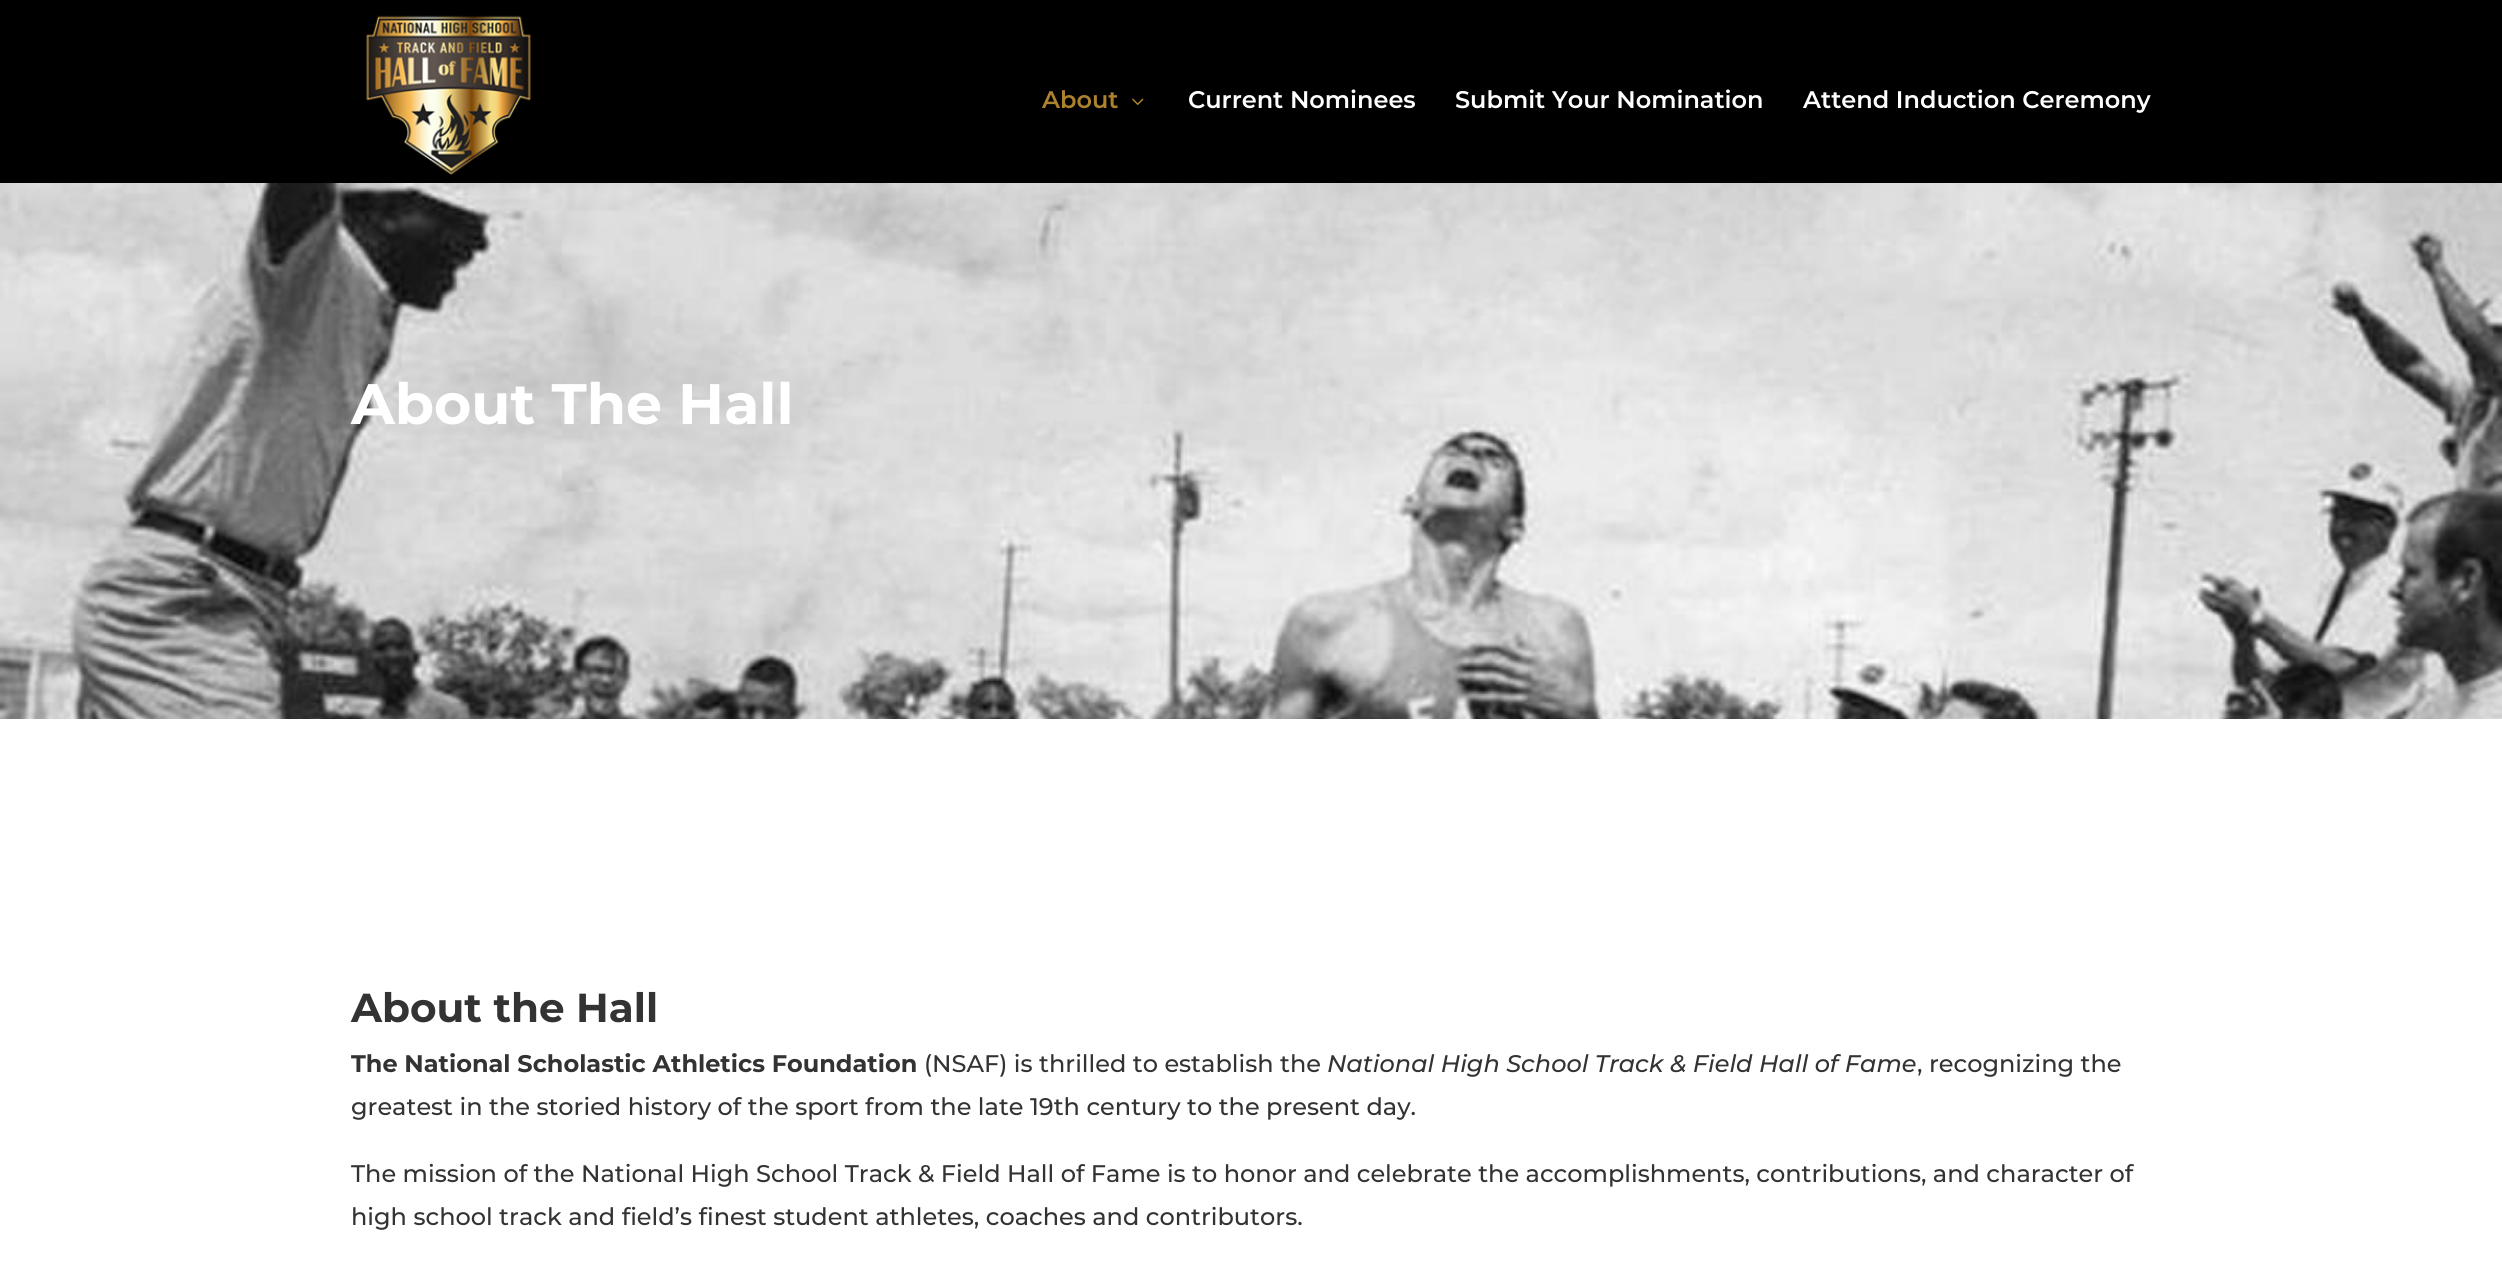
import math
import cairo


def paste(ctx, path, x, y, w, h):
	ctx.save()
	ctx.set_source_surface(cairo.ImageSurface.create_from_png(path), x, y)
	ctx.rectangle(x, y, w, h)
	ctx.fill()
	ctx.restore()

def draw(ctx):
	ctx.set_source_rgb(1, 1, 1)
	ctx.paint()
	ctx.set_source_rgb(0, 0, 0)
	ctx.rectangle(0, 0, 2502, 183)
	ctx.fill()
	paste(ctx, 'media/1.png', 366, 15, 165, 160)
	ctx.select_font_face('Montserrat SemiBold')
	ctx.set_font_size(24)
	ctx.set_source_rgb(0.678, 0.51, 0.176)
	ctx.move_to(1042, 108)
	ctx.show_text('About')
	paste(ctx, 'media/2.png', 1132, 98, 12, 7)
	ctx.set_source_rgb(1, 1, 1)
	for x, y, s in [
		(1188, 108, 'Current Nominees'),
		(1455, 108, 'Submit Your Nomination'),
		(1803, 108, 'Attend Induction Ceremony'),
	]:
		ctx.move_to(x, y)
		ctx.show_text(s)
	paste(ctx, 'media/3.png', 0, 183, 2502, 536)
	ctx.select_font_face('Montserrat', cairo.FONT_SLANT_NORMAL, cairo.FONT_WEIGHT_BOLD)
	ctx.set_font_size(57)
	ctx.move_to(351, 424)
	ctx.show_text('About The Hall')
	ctx.set_font_size(40.5)
	ctx.set_source_rgb(0.2, 0.2, 0.2)
	ctx.move_to(351, 1022)
	ctx.show_text('About the Hall')
	ctx.set_font_size(24)
	ctx.move_to(351, 1072)
	ctx.show_text('The National Scholastic Athletics Foundation')
	ctx.select_font_face('Montserrat Medium')
	ctx.move_to(924, 1072)
	ctx.show_text('(NSAF) is thrilled to establish the')
	ctx.select_font_face('Montserrat Medium', cairo.FONT_SLANT_ITALIC)
	ctx.move_to(1327, 1072)
	ctx.show_text('National High School Track & Field Hall of Fame')
	ctx.select_font_face('Montserrat Medium')
	for x, y, s in [
		(1917, 1072, ', recognizing the'),
		(351, 1115, 'greatest in the storied history of the sport from the late 19th century to the present day.'),
		(351, 1182, 'The mission of the National High School Track & Field Hall of Fame is to honor and celebrate the accomplishments, contributions, and character of'),
		(351, 1225, 'high school track and field’s finest student athletes, coaches and contributors.'),
	]:
		ctx.move_to(x, y)
		ctx.show_text(s)


surface = cairo.ImageSurface(cairo.FORMAT_RGB24, 2502, 1288)
ctx = cairo.Context(surface)
options = cairo.FontOptions()
options.set_hint_metrics(cairo.HINT_METRICS_OFF)
options.set_hint_style(cairo.HINT_STYLE_NONE)
ctx.set_font_options(options)
ctx.set_miter_limit(4)
draw(ctx)
surface.write_to_png('image.png')
